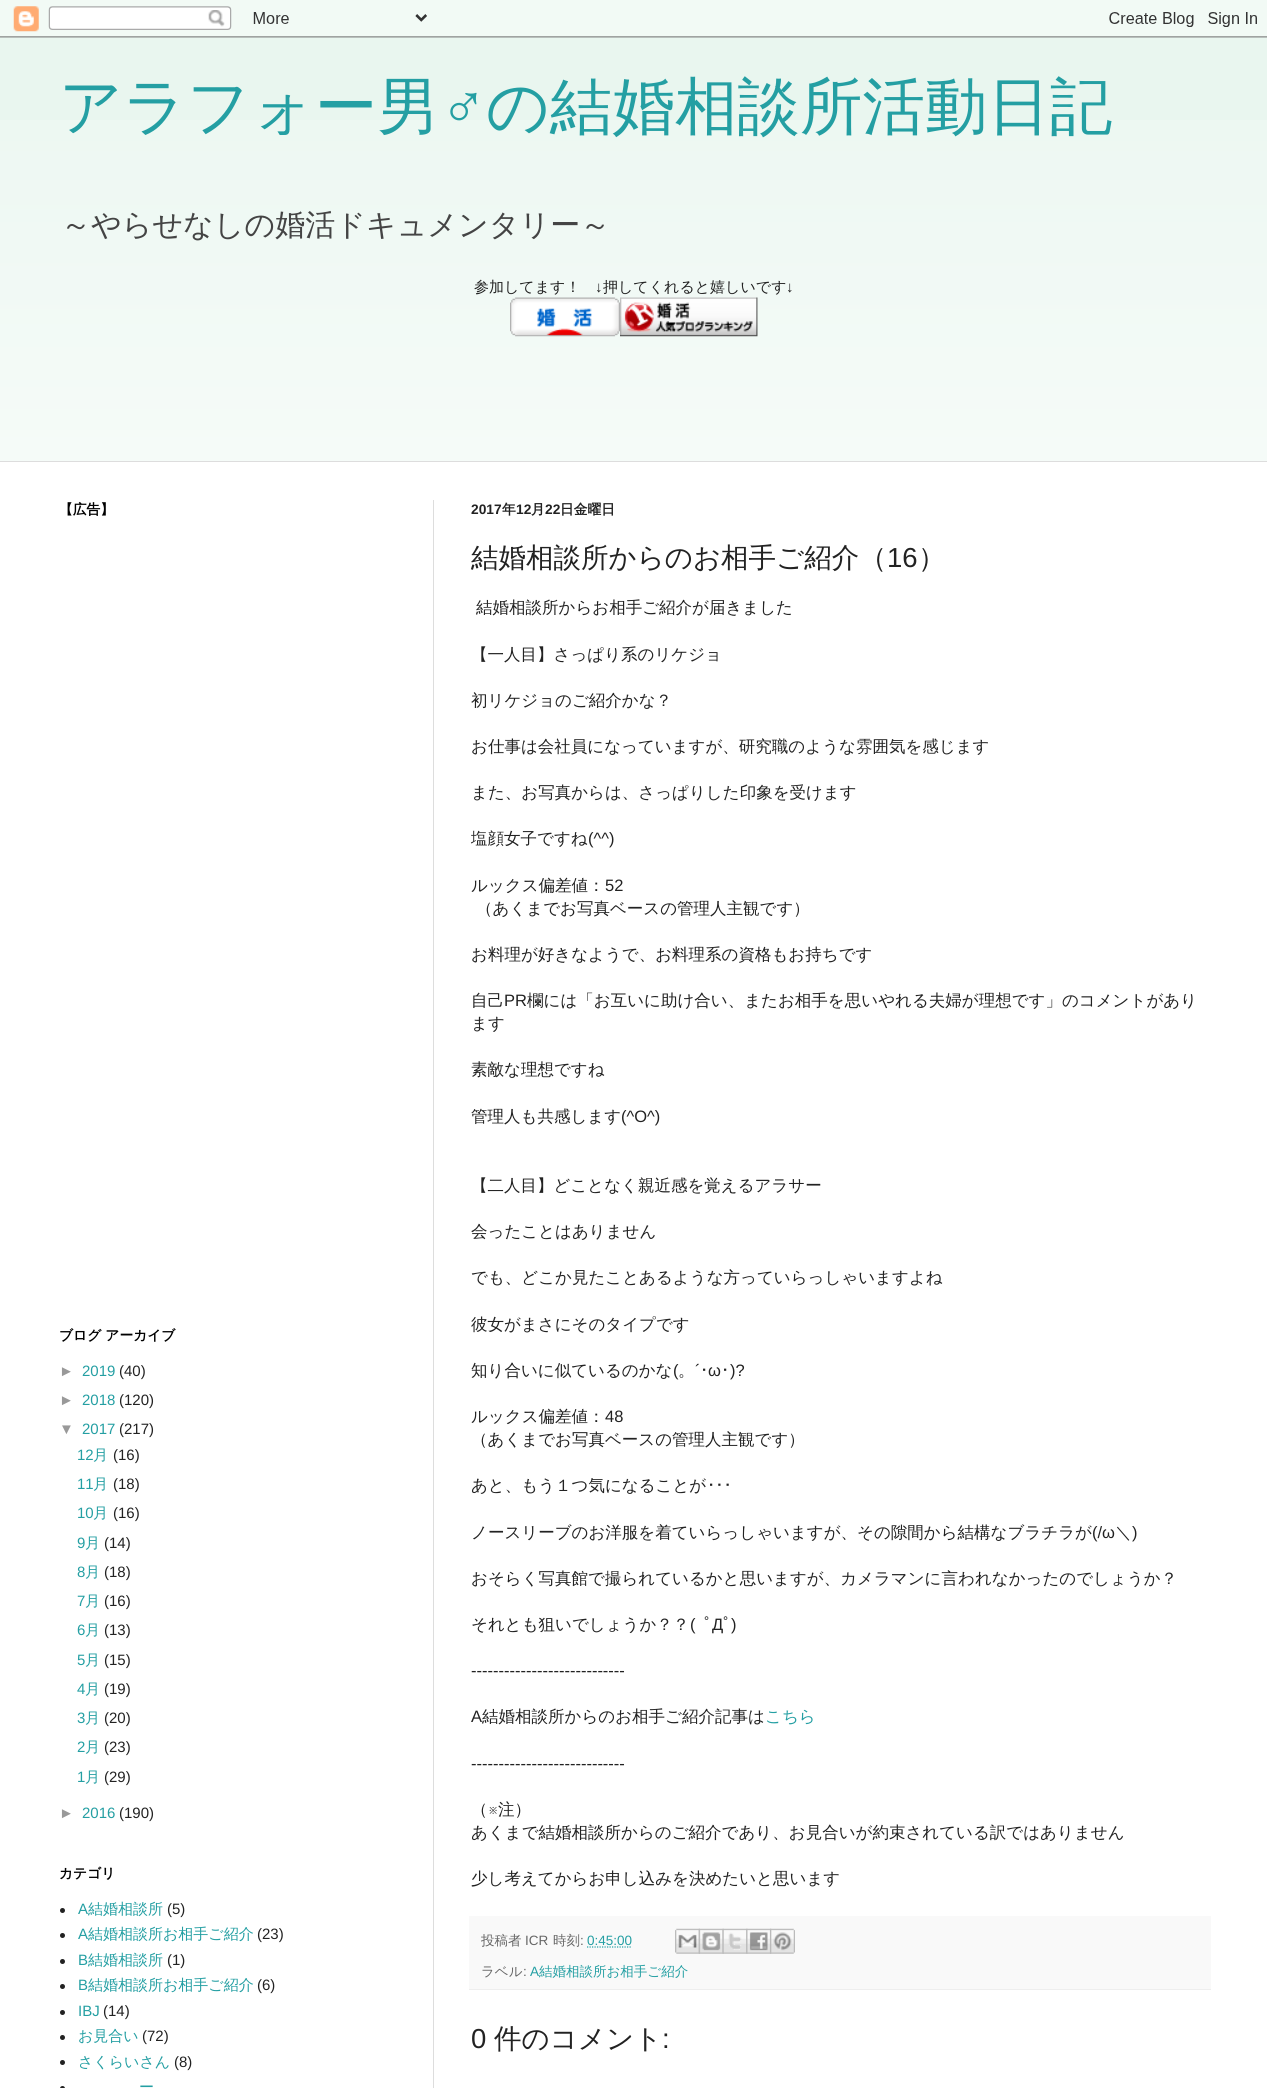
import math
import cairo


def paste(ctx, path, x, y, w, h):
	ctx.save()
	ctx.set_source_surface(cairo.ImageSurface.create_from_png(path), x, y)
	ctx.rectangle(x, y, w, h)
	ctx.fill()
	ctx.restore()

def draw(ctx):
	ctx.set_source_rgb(0.914, 0.961, 0.937)
	ctx.paint()
	paste(ctx, 'media/1.png', 0, 0, 1267, 38)
	paste(ctx, 'media/9.png', 0, 120, 1267, 341)
	ctx.select_font_face('WenQuanYi Zen Hei Medium')
	ctx.set_font_size(62.5)
	ctx.set_source_rgb(0.141, 0.624, 0.639)
	ctx.move_to(59, 128)
	ctx.show_text('アラフォー男')
	ctx.select_font_face('Liberation Sans')
	ctx.move_to(440, 128)
	ctx.show_text('♂')
	ctx.select_font_face('WenQuanYi Zen Hei Medium')
	ctx.move_to(486, 128)
	ctx.show_text('の結婚相談所活動日記')
	ctx.set_font_size(30)
	ctx.set_source_rgb(0.267, 0.267, 0.267)
	ctx.move_to(61, 235)
	ctx.show_text('～やらせなしの婚活ドキュメンタリー～')
	ctx.set_font_size(15)
	ctx.set_source_rgb(0.133, 0.133, 0.133)
	ctx.move_to(474, 292)
	ctx.show_text('参加してます！')
	ctx.select_font_face('Liberation Sans')
	ctx.move_to(595, 292)
	ctx.show_text('↓')
	ctx.select_font_face('WenQuanYi Zen Hei Medium')
	ctx.move_to(603, 292)
	ctx.show_text('押してくれると嬉しいです')
	ctx.select_font_face('Liberation Sans')
	ctx.move_to(786, 292)
	ctx.show_text('↓')
	paste(ctx, 'media/2.png', 510, 297, 110, 40)
	paste(ctx, 'media/3.png', 620, 297, 138, 40)
	ctx.set_source_rgb(1, 1, 1)
	ctx.rectangle(0, 462, 1267, 1626)
	ctx.fill()
	ctx.set_source_rgb(0.867, 0.867, 0.867)
	ctx.rectangle(0, 461, 1267, 1)
	ctx.rectangle(433, 500, 1, 1588)
	ctx.fill()
	ctx.select_font_face('WenQuanYi Zen Hei', cairo.FONT_SLANT_NORMAL, cairo.FONT_WEIGHT_BOLD)
	ctx.set_font_size(13.75)
	ctx.set_source_rgb(0, 0, 0)
	ctx.move_to(59, 514)
	ctx.show_text('【広告】')
	ctx.move_to(59, 1340)
	ctx.show_text('ブログ アーカイブ')
	ctx.select_font_face('Liberation Sans')
	ctx.set_font_size(15)
	ctx.set_source_rgb(0.6, 0.6, 0.6)
	ctx.move_to(59, 1376)
	ctx.show_text('►')
	ctx.set_source_rgb(0.141, 0.624, 0.639)
	ctx.move_to(82, 1376)
	ctx.show_text('2019')
	ctx.set_source_rgb(0.133, 0.133, 0.133)
	ctx.move_to(119, 1376)
	ctx.show_text('(40)')
	ctx.set_source_rgb(0.6, 0.6, 0.6)
	ctx.move_to(59, 1405)
	ctx.show_text('►')
	ctx.set_source_rgb(0.141, 0.624, 0.639)
	ctx.move_to(82, 1405)
	ctx.show_text('2018')
	ctx.set_source_rgb(0.133, 0.133, 0.133)
	ctx.move_to(119, 1405)
	ctx.show_text('(120)')
	ctx.set_source_rgb(0.6, 0.6, 0.6)
	ctx.move_to(59, 1434)
	ctx.show_text('▼')
	ctx.set_source_rgb(0.141, 0.624, 0.639)
	ctx.move_to(82, 1434)
	ctx.show_text('2017')
	ctx.set_source_rgb(0.133, 0.133, 0.133)
	ctx.move_to(119, 1434)
	ctx.show_text('(217)')
	ctx.set_source_rgb(0.141, 0.624, 0.639)
	ctx.move_to(77, 1460)
	ctx.show_text('12')
	ctx.select_font_face('WenQuanYi Zen Hei Medium')
	ctx.move_to(93, 1460)
	ctx.show_text('月')
	ctx.select_font_face('Liberation Sans')
	ctx.set_source_rgb(0.133, 0.133, 0.133)
	ctx.move_to(113, 1460)
	ctx.show_text('(16)')
	ctx.set_source_rgb(0.141, 0.624, 0.639)
	ctx.move_to(77, 1489)
	ctx.show_text('11')
	ctx.select_font_face('WenQuanYi Zen Hei Medium')
	ctx.move_to(93, 1489)
	ctx.show_text('月')
	ctx.select_font_face('Liberation Sans')
	ctx.set_source_rgb(0.133, 0.133, 0.133)
	ctx.move_to(113, 1489)
	ctx.show_text('(18)')
	ctx.set_source_rgb(0.141, 0.624, 0.639)
	ctx.move_to(77, 1518)
	ctx.show_text('10')
	ctx.select_font_face('WenQuanYi Zen Hei Medium')
	ctx.move_to(93, 1518)
	ctx.show_text('月')
	ctx.select_font_face('Liberation Sans')
	ctx.set_source_rgb(0.133, 0.133, 0.133)
	ctx.move_to(113, 1518)
	ctx.show_text('(16)')
	ctx.set_source_rgb(0.141, 0.624, 0.639)
	ctx.move_to(77, 1548)
	ctx.show_text('9')
	ctx.select_font_face('WenQuanYi Zen Hei Medium')
	ctx.move_to(85, 1548)
	ctx.show_text('月')
	ctx.select_font_face('Liberation Sans')
	ctx.set_source_rgb(0.133, 0.133, 0.133)
	ctx.move_to(104, 1548)
	ctx.show_text('(14)')
	ctx.set_source_rgb(0.141, 0.624, 0.639)
	ctx.move_to(77, 1577)
	ctx.show_text('8')
	ctx.select_font_face('WenQuanYi Zen Hei Medium')
	ctx.move_to(85, 1577)
	ctx.show_text('月')
	ctx.select_font_face('Liberation Sans')
	ctx.set_source_rgb(0.133, 0.133, 0.133)
	ctx.move_to(104, 1577)
	ctx.show_text('(18)')
	ctx.set_source_rgb(0.141, 0.624, 0.639)
	ctx.move_to(77, 1606)
	ctx.show_text('7')
	ctx.select_font_face('WenQuanYi Zen Hei Medium')
	ctx.move_to(85, 1606)
	ctx.show_text('月')
	ctx.select_font_face('Liberation Sans')
	ctx.set_source_rgb(0.133, 0.133, 0.133)
	ctx.move_to(104, 1606)
	ctx.show_text('(16)')
	ctx.set_source_rgb(0.141, 0.624, 0.639)
	ctx.move_to(77, 1635)
	ctx.show_text('6')
	ctx.select_font_face('WenQuanYi Zen Hei Medium')
	ctx.move_to(85, 1635)
	ctx.show_text('月')
	ctx.select_font_face('Liberation Sans')
	ctx.set_source_rgb(0.133, 0.133, 0.133)
	ctx.move_to(104, 1635)
	ctx.show_text('(13)')
	ctx.set_source_rgb(0.141, 0.624, 0.639)
	ctx.move_to(77, 1665)
	ctx.show_text('5')
	ctx.select_font_face('WenQuanYi Zen Hei Medium')
	ctx.move_to(85, 1665)
	ctx.show_text('月')
	ctx.select_font_face('Liberation Sans')
	ctx.set_source_rgb(0.133, 0.133, 0.133)
	ctx.move_to(104, 1665)
	ctx.show_text('(15)')
	ctx.set_source_rgb(0.141, 0.624, 0.639)
	ctx.move_to(77, 1694)
	ctx.show_text('4')
	ctx.select_font_face('WenQuanYi Zen Hei Medium')
	ctx.move_to(85, 1694)
	ctx.show_text('月')
	ctx.select_font_face('Liberation Sans')
	ctx.set_source_rgb(0.133, 0.133, 0.133)
	ctx.move_to(104, 1694)
	ctx.show_text('(19)')
	ctx.set_source_rgb(0.141, 0.624, 0.639)
	ctx.move_to(77, 1723)
	ctx.show_text('3')
	ctx.select_font_face('WenQuanYi Zen Hei Medium')
	ctx.move_to(85, 1723)
	ctx.show_text('月')
	ctx.select_font_face('Liberation Sans')
	ctx.set_source_rgb(0.133, 0.133, 0.133)
	ctx.move_to(104, 1723)
	ctx.show_text('(20)')
	ctx.set_source_rgb(0.141, 0.624, 0.639)
	ctx.move_to(77, 1752)
	ctx.show_text('2')
	ctx.select_font_face('WenQuanYi Zen Hei Medium')
	ctx.move_to(85, 1752)
	ctx.show_text('月')
	ctx.select_font_face('Liberation Sans')
	ctx.set_source_rgb(0.133, 0.133, 0.133)
	ctx.move_to(104, 1752)
	ctx.show_text('(23)')
	ctx.set_source_rgb(0.141, 0.624, 0.639)
	ctx.move_to(77, 1782)
	ctx.show_text('1')
	ctx.select_font_face('WenQuanYi Zen Hei Medium')
	ctx.move_to(85, 1782)
	ctx.show_text('月')
	ctx.select_font_face('Liberation Sans')
	ctx.set_source_rgb(0.133, 0.133, 0.133)
	ctx.move_to(104, 1782)
	ctx.show_text('(29)')
	ctx.set_source_rgb(0.6, 0.6, 0.6)
	ctx.move_to(59, 1818)
	ctx.show_text('►')
	ctx.set_source_rgb(0.141, 0.624, 0.639)
	ctx.move_to(82, 1818)
	ctx.show_text('2016')
	ctx.set_source_rgb(0.133, 0.133, 0.133)
	ctx.move_to(119, 1818)
	ctx.show_text('(190)')
	ctx.select_font_face('WenQuanYi Zen Hei', cairo.FONT_SLANT_NORMAL, cairo.FONT_WEIGHT_BOLD)
	ctx.set_font_size(13.75)
	ctx.set_source_rgb(0, 0, 0)
	ctx.move_to(59, 1878)
	ctx.show_text('カテゴリ')
	ctx.set_source_rgb(0.133, 0.133, 0.133)
	ctx.new_path()
	ctx.arc(62.5, 1910.5, 2.5, 0, 2 * math.pi)
	ctx.fill()
	ctx.select_font_face('Liberation Sans')
	ctx.set_font_size(15)
	ctx.set_source_rgb(0.141, 0.624, 0.639)
	ctx.move_to(78, 1914)
	ctx.show_text('A')
	ctx.select_font_face('WenQuanYi Zen Hei Medium')
	ctx.move_to(88, 1914)
	ctx.show_text('結婚相談所')
	ctx.select_font_face('Liberation Sans')
	ctx.set_source_rgb(0.133, 0.133, 0.133)
	ctx.move_to(167, 1914)
	ctx.show_text('(5)')
	ctx.new_path()
	ctx.arc(62.5, 1935.5, 2.5, 0, 2 * math.pi)
	ctx.fill()
	ctx.set_source_rgb(0.141, 0.624, 0.639)
	ctx.move_to(78, 1939)
	ctx.show_text('A')
	ctx.select_font_face('WenQuanYi Zen Hei Medium')
	ctx.move_to(88, 1939)
	ctx.show_text('結婚相談所お相手ご紹介')
	ctx.select_font_face('Liberation Sans')
	ctx.set_source_rgb(0.133, 0.133, 0.133)
	ctx.move_to(257, 1939)
	ctx.show_text('(23)')
	ctx.new_path()
	ctx.arc(62.5, 1961.5, 2.5, 0, 2 * math.pi)
	ctx.fill()
	ctx.set_source_rgb(0.141, 0.624, 0.639)
	ctx.move_to(78, 1965)
	ctx.show_text('B')
	ctx.select_font_face('WenQuanYi Zen Hei Medium')
	ctx.move_to(88, 1965)
	ctx.show_text('結婚相談所')
	ctx.select_font_face('Liberation Sans')
	ctx.set_source_rgb(0.133, 0.133, 0.133)
	ctx.move_to(167, 1965)
	ctx.show_text('(1)')
	ctx.new_path()
	ctx.arc(62.5, 1986.5, 2.5, 0, 2 * math.pi)
	ctx.fill()
	ctx.set_source_rgb(0.141, 0.624, 0.639)
	ctx.move_to(78, 1990)
	ctx.show_text('B')
	ctx.select_font_face('WenQuanYi Zen Hei Medium')
	ctx.move_to(88, 1990)
	ctx.show_text('結婚相談所お相手ご紹介')
	ctx.select_font_face('Liberation Sans')
	ctx.set_source_rgb(0.133, 0.133, 0.133)
	ctx.move_to(257, 1990)
	ctx.show_text('(6)')
	ctx.new_path()
	ctx.arc(62.5, 2012.5, 2.5, 0, 2 * math.pi)
	ctx.fill()
	ctx.set_source_rgb(0.141, 0.624, 0.639)
	ctx.move_to(78, 2016)
	ctx.show_text('IBJ')
	ctx.set_source_rgb(0.133, 0.133, 0.133)
	ctx.move_to(103, 2016)
	ctx.show_text('(14)')
	ctx.new_path()
	ctx.arc(62.5, 2037.5, 2.5, 0, 2 * math.pi)
	ctx.fill()
	ctx.select_font_face('WenQuanYi Zen Hei Medium')
	ctx.set_source_rgb(0.141, 0.624, 0.639)
	ctx.move_to(78, 2041)
	ctx.show_text('お見合い')
	ctx.select_font_face('Liberation Sans')
	ctx.set_source_rgb(0.133, 0.133, 0.133)
	ctx.move_to(142, 2041)
	ctx.show_text('(72)')
	ctx.new_path()
	ctx.arc(62.5, 2062.5, 2.5, 0, 2 * math.pi)
	ctx.fill()
	ctx.select_font_face('WenQuanYi Zen Hei Medium')
	ctx.set_source_rgb(0.141, 0.624, 0.639)
	ctx.move_to(78, 2067)
	ctx.show_text('さくらいさん')
	ctx.select_font_face('Liberation Sans')
	ctx.set_source_rgb(0.133, 0.133, 0.133)
	ctx.move_to(174, 2067)
	ctx.show_text('(8)')
	ctx.new_path()
	ctx.arc(62.5, 2088.5, 2.5, 0, 2 * math.pi)
	ctx.fill()
	ctx.select_font_face('WenQuanYi Zen Hei Medium')
	ctx.set_source_rgb(0.141, 0.624, 0.639)
	ctx.move_to(139, 2092)
	ctx.show_text('ー')
	ctx.select_font_face('Liberation Sans', cairo.FONT_SLANT_NORMAL, cairo.FONT_WEIGHT_BOLD)
	ctx.set_font_size(13.75)
	ctx.set_source_rgb(0.133, 0.133, 0.133)
	ctx.move_to(471, 514)
	ctx.show_text('2017')
	ctx.select_font_face('WenQuanYi Zen Hei', cairo.FONT_SLANT_NORMAL, cairo.FONT_WEIGHT_BOLD)
	ctx.move_to(502, 514)
	ctx.show_text('年')
	ctx.select_font_face('Liberation Sans', cairo.FONT_SLANT_NORMAL, cairo.FONT_WEIGHT_BOLD)
	ctx.move_to(516, 514)
	ctx.show_text('12')
	ctx.select_font_face('WenQuanYi Zen Hei', cairo.FONT_SLANT_NORMAL, cairo.FONT_WEIGHT_BOLD)
	ctx.move_to(531, 514)
	ctx.show_text('月')
	ctx.select_font_face('Liberation Sans', cairo.FONT_SLANT_NORMAL, cairo.FONT_WEIGHT_BOLD)
	ctx.move_to(545, 514)
	ctx.show_text('22')
	ctx.select_font_face('WenQuanYi Zen Hei', cairo.FONT_SLANT_NORMAL, cairo.FONT_WEIGHT_BOLD)
	ctx.move_to(560, 514)
	ctx.show_text('日金曜日')
	ctx.select_font_face('WenQuanYi Zen Hei Medium')
	ctx.set_font_size(27.5)
	ctx.move_to(471, 567)
	ctx.show_text('結婚相談所からのお相手ご紹介（')
	ctx.select_font_face('Liberation Sans')
	ctx.move_to(887, 567)
	ctx.show_text('16')
	ctx.select_font_face('WenQuanYi Zen Hei Medium')
	ctx.move_to(918, 567)
	ctx.show_text('）')
	ctx.set_font_size(16.5)
	for x, y, s in [
		(476, 613, '結婚相談所からお相手ご紹介が届きました'),
		(471, 660, '【一人目】さっぱり系のリケジョ'),
		(471, 706, '初リケジョのご紹介かな？'),
		(471, 752, 'お仕事は会社員になっていますが、研究職のような雰囲気を感じます'),
		(471, 798, 'また、お写真からは、さっぱりした印象を受けます'),
		(471, 844, '塩顔女子ですね'),
	]:
		ctx.move_to(x, y)
		ctx.show_text(s)
	ctx.select_font_face('Liberation Sans')
	ctx.move_to(588, 844)
	ctx.show_text('(^^)')
	ctx.select_font_face('WenQuanYi Zen Hei Medium')
	ctx.move_to(471, 891)
	ctx.show_text('ルックス偏差値：')
	ctx.select_font_face('Liberation Sans')
	ctx.move_to(605, 891)
	ctx.show_text('52')
	ctx.select_font_face('WenQuanYi Zen Hei Medium')
	for x, y, s in [
		(476, 914, '（あくまでお写真ベースの管理人主観です）'),
		(471, 960, 'お料理が好きなようで、お料理系の資格もお持ちです'),
		(471, 1006, '自己'),
	]:
		ctx.move_to(x, y)
		ctx.show_text(s)
	ctx.select_font_face('Liberation Sans')
	ctx.move_to(504, 1006)
	ctx.show_text('PR')
	ctx.select_font_face('WenQuanYi Zen Hei Medium')
	for x, y, s in [
		(527, 1006, '欄には「お互いに助け合い、またお相手を思いやれる夫婦が理想です」のコメントがあり'),
		(471, 1029, 'ます'),
		(471, 1075, '素敵な理想ですね'),
		(471, 1122, '管理人も共感します'),
	]:
		ctx.move_to(x, y)
		ctx.show_text(s)
	ctx.select_font_face('Liberation Sans')
	ctx.move_to(621, 1122)
	ctx.show_text('(^O^)')
	ctx.select_font_face('WenQuanYi Zen Hei Medium')
	for x, y, s in [
		(471, 1191, '【二人目】どことなく親近感を覚えるアラサー'),
		(471, 1237, '会ったことはありません'),
		(471, 1283, 'でも、どこか見たことあるような方っていらっしゃいますよね'),
		(471, 1330, '彼女がまさにそのタイプです'),
		(471, 1376, '知り合いに似ているのかな'),
	]:
		ctx.move_to(x, y)
		ctx.show_text(s)
	ctx.select_font_face('Liberation Sans')
	ctx.move_to(673, 1376)
	ctx.show_text('(')
	ctx.move_to(695, 1376)
	ctx.show_text('´')
	ctx.select_font_face('IPAPGothic')
	ctx.move_to(700, 1376)
	ctx.show_text('･')
	ctx.select_font_face('Liberation Sans')
	ctx.move_to(708, 1376)
	ctx.show_text('ω')
	ctx.select_font_face('IPAPGothic')
	ctx.move_to(721, 1376)
	ctx.show_text('･')
	ctx.select_font_face('Liberation Sans')
	ctx.move_to(730, 1376)
	ctx.show_text(')?')
	ctx.select_font_face('WenQuanYi Zen Hei Medium')
	ctx.move_to(678, 1376)
	ctx.show_text('。')
	ctx.move_to(471, 1422)
	ctx.show_text('ルックス偏差値：')
	ctx.select_font_face('Liberation Sans')
	ctx.move_to(605, 1422)
	ctx.show_text('48')
	ctx.select_font_face('WenQuanYi Zen Hei Medium')
	ctx.move_to(471, 1445)
	ctx.show_text('（あくまでお写真ベースの管理人主観です）')
	ctx.move_to(471, 1491)
	ctx.show_text('あと、もう１つ気になることが')
	ctx.select_font_face('IPAPGothic')
	ctx.move_to(707, 1491)
	ctx.show_text('･･･')
	ctx.select_font_face('WenQuanYi Zen Hei Medium')
	ctx.move_to(471, 1538)
	ctx.show_text('ノースリーブのお洋服を着ていらっしゃいますが、その隙間から結構なブラチラが')
	ctx.select_font_face('Liberation Sans')
	ctx.move_to(1092, 1538)
	ctx.show_text('(/ω')
	ctx.select_font_face('WenQuanYi Zen Hei Medium')
	ctx.move_to(1115, 1538)
	ctx.show_text('＼')
	ctx.select_font_face('Liberation Sans')
	ctx.move_to(1132, 1538)
	ctx.show_text(')')
	ctx.select_font_face('WenQuanYi Zen Hei Medium')
	ctx.move_to(471, 1584)
	ctx.show_text('おそらく写真館で撮られているかと思いますが、カメラマンに言われなかったのでしょうか？')
	ctx.move_to(471, 1630)
	ctx.show_text('それとも狙いでしょうか？？')
	ctx.select_font_face('Liberation Sans')
	ctx.move_to(690, 1630)
	ctx.show_text('(')
	ctx.select_font_face('IPAPGothic')
	ctx.move_to(704, 1630)
	ctx.show_text('ﾟ')
	ctx.select_font_face('Liberation Sans')
	ctx.move_to(712, 1630)
	ctx.show_text('Д')
	ctx.select_font_face('IPAPGothic')
	ctx.move_to(723, 1630)
	ctx.show_text('ﾟ')
	ctx.select_font_face('Liberation Sans')
	for x, y, s in [
		(731, 1630, ')'),
		(471, 1676, '----------------------------'),
		(471, 1722, 'A'),
	]:
		ctx.move_to(x, y)
		ctx.show_text(s)
	ctx.select_font_face('WenQuanYi Zen Hei Medium')
	ctx.move_to(482, 1722)
	ctx.show_text('結婚相談所からのお相手ご紹介記事は')
	ctx.set_source_rgb(0.141, 0.624, 0.639)
	ctx.move_to(765, 1722)
	ctx.show_text('こちら')
	ctx.select_font_face('Liberation Sans')
	ctx.set_source_rgb(0.133, 0.133, 0.133)
	ctx.move_to(471, 1769)
	ctx.show_text('----------------------------')
	ctx.select_font_face('WenQuanYi Zen Hei Medium')
	ctx.move_to(471, 1815)
	ctx.show_text('（')
	ctx.select_font_face('FreeSans')
	ctx.move_to(488, 1815)
	ctx.show_text('※')
	ctx.select_font_face('WenQuanYi Zen Hei Medium')
	for x, y, s in [
		(498, 1815, '注）'),
		(471, 1838, 'あくまで結婚相談所からのご紹介であり、お見合いが約束されている訳ではありません'),
		(471, 1884, '少し考えてからお申し込みを決めたいと思います'),
	]:
		ctx.move_to(x, y)
		ctx.show_text(s)
	ctx.set_source_rgb(0.976, 0.976, 0.976)
	ctx.rectangle(469, 1916, 742, 73)
	ctx.fill()
	ctx.set_source_rgb(0.933, 0.933, 0.933)
	ctx.rectangle(469, 1989, 742, 1)
	ctx.fill()
	ctx.set_font_size(13.5)
	ctx.set_source_rgb(0.4, 0.4, 0.4)
	ctx.move_to(481, 1945)
	ctx.show_text('投稿者')
	ctx.select_font_face('Liberation Sans')
	ctx.move_to(525, 1945)
	ctx.show_text('ICR')
	ctx.select_font_face('WenQuanYi Zen Hei Medium')
	ctx.move_to(553, 1945)
	ctx.show_text('時刻')
	ctx.select_font_face('Liberation Sans')
	ctx.move_to(580, 1945)
	ctx.show_text(':')
	ctx.set_source_rgb(0.141, 0.624, 0.639)
	ctx.move_to(587, 1945)
	ctx.show_text('0:45:00')
	ctx.new_path()
	ctx.move_to(587, 1947)
	ctx.line_to(632, 1947)
	ctx.set_line_width(1.2)
	ctx.set_dash([1.25, 1.25])
	ctx.stroke()
	paste(ctx, 'media/4.png', 675, 1928, 25, 26)
	paste(ctx, 'media/5.png', 698, 1928, 26, 26)
	paste(ctx, 'media/6.png', 722, 1928, 26, 26)
	paste(ctx, 'media/7.png', 746, 1928, 26, 26)
	paste(ctx, 'media/8.png', 770, 1928, 25, 26)
	ctx.select_font_face('WenQuanYi Zen Hei Medium')
	ctx.set_source_rgb(0.4, 0.4, 0.4)
	ctx.move_to(481, 1976)
	ctx.show_text('ラベル')
	ctx.select_font_face('Liberation Sans')
	ctx.move_to(523, 1976)
	ctx.show_text(':')
	ctx.set_source_rgb(0.141, 0.624, 0.639)
	ctx.move_to(530, 1976)
	ctx.show_text('A')
	ctx.select_font_face('WenQuanYi Zen Hei Medium')
	ctx.move_to(539, 1976)
	ctx.show_text('結婚相談所お相手ご紹介')
	ctx.select_font_face('Liberation Sans')
	ctx.set_font_size(27.5)
	ctx.set_source_rgb(0.133, 0.133, 0.133)
	ctx.move_to(471, 2048)
	ctx.show_text('0')
	ctx.select_font_face('WenQuanYi Zen Hei Medium')
	ctx.move_to(494, 2048)
	ctx.show_text('件のコメント')
	ctx.select_font_face('Liberation Sans')
	ctx.move_to(662, 2048)
	ctx.show_text(':')


surface = cairo.ImageSurface(cairo.FORMAT_RGB24, 1267, 2088)
ctx = cairo.Context(surface)
options = cairo.FontOptions()
options.set_hint_metrics(cairo.HINT_METRICS_OFF)
options.set_hint_style(cairo.HINT_STYLE_NONE)
ctx.set_font_options(options)
ctx.set_miter_limit(4)
draw(ctx)
surface.write_to_png('image.png')
